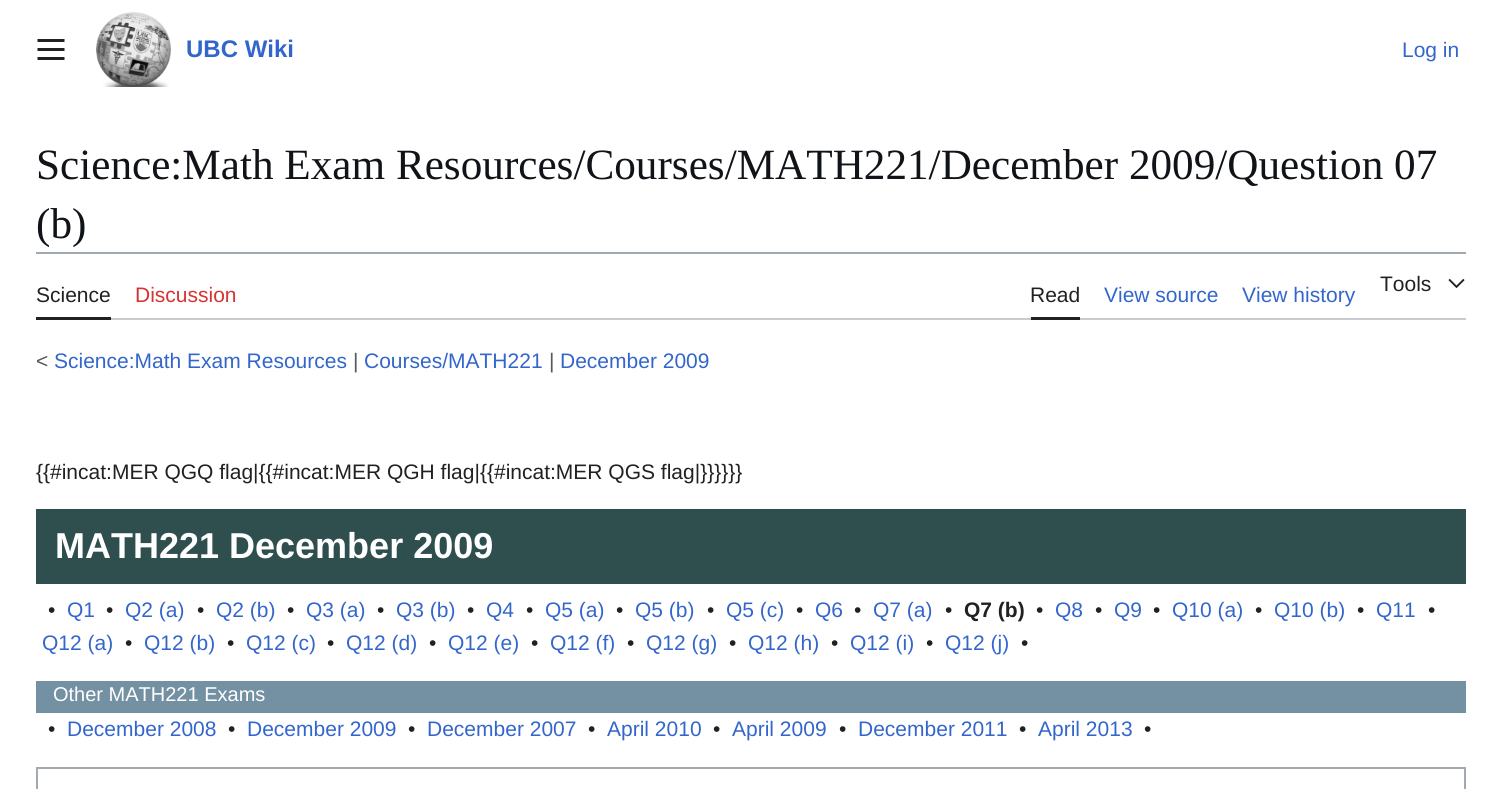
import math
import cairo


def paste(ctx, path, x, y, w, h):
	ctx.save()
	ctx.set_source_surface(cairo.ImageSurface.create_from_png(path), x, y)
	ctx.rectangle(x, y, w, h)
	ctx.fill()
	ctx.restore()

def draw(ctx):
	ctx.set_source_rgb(1, 1, 1)
	ctx.paint()
	paste(ctx, 'media/1.png', 37, 39, 28, 21)
	paste(ctx, 'media/2.png', 96, 12, 75, 75)
	ctx.select_font_face('Liberation Sans', cairo.FONT_SLANT_NORMAL, cairo.FONT_WEIGHT_BOLD)
	ctx.set_font_size(24)
	ctx.set_source_rgb(0.2, 0.4, 0.8)
	ctx.move_to(186, 57)
	ctx.show_text('UBC Wiki')
	ctx.select_font_face('Liberation Sans')
	ctx.set_font_size(21)
	ctx.move_to(1402, 57)
	ctx.show_text('Log in')
	ctx.select_font_face('Liberation Serif')
	ctx.set_font_size(43.2)
	ctx.set_source_rgb(0.063, 0.078, 0.094)
	ctx.move_to(36, 179)
	ctx.show_text('Science:Math Exam Resources/Courses/MATH221/December 2009/Question 07')
	ctx.move_to(36, 238)
	ctx.show_text('(b)')
	ctx.set_source_rgb(0.635, 0.663, 0.694)
	ctx.rectangle(36, 252, 1430, 2)
	ctx.fill()
	ctx.set_source_rgb(0.784, 0.8, 0.82)
	ctx.new_path()
	ctx.move_to(36, 318)
	ctx.line_to(36, 320)
	ctx.line_to(1466, 320)
	ctx.line_to(1466, 255)
	ctx.line_to(1466, 318)
	ctx.close_path()
	ctx.fill()
	ctx.set_source_rgb(0.125, 0.129, 0.133)
	ctx.rectangle(36, 317, 75, 3)
	ctx.fill()
	ctx.select_font_face('Liberation Sans')
	ctx.set_font_size(21)
	ctx.move_to(36, 302)
	ctx.show_text('Science')
	ctx.set_source_rgb(0.843, 0.2, 0.2)
	ctx.move_to(135, 302)
	ctx.show_text('Discussion')
	ctx.set_source_rgb(0.125, 0.129, 0.133)
	ctx.move_to(1380, 291)
	ctx.show_text('Tools')
	paste(ctx, 'media/3.png', 1448, 278, 17, 11)
	ctx.rectangle(1031, 317, 49, 3)
	ctx.fill()
	ctx.move_to(1030, 302)
	ctx.show_text('Read')
	ctx.set_source_rgb(0.2, 0.4, 0.8)
	ctx.move_to(1104, 302)
	ctx.show_text('View source')
	ctx.move_to(1242, 302)
	ctx.show_text('View history')
	ctx.set_source_rgb(0.329, 0.349, 0.365)
	ctx.move_to(36, 368)
	ctx.show_text('<')
	ctx.set_source_rgb(0.2, 0.4, 0.8)
	ctx.move_to(54, 368)
	ctx.show_text('Science:Math Exam Resources')
	ctx.set_source_rgb(0.329, 0.349, 0.365)
	ctx.move_to(353, 368)
	ctx.show_text('|')
	ctx.set_source_rgb(0.2, 0.4, 0.8)
	ctx.move_to(364, 368)
	ctx.show_text('Courses/MATH221')
	ctx.set_source_rgb(0.329, 0.349, 0.365)
	ctx.move_to(549, 368)
	ctx.show_text('|')
	ctx.set_source_rgb(0.2, 0.4, 0.8)
	ctx.move_to(560, 368)
	ctx.show_text('December 2009')
	ctx.set_source_rgb(0.125, 0.129, 0.133)
	ctx.move_to(36, 479)
	ctx.show_text('{{#incat:MER QGQ flag|{{#incat:MER QGH flag|{{#incat:MER QGS flag|}}}}}}')
	ctx.set_source_rgb(0.184, 0.31, 0.31)
	ctx.rectangle(36, 509, 1430, 75)
	ctx.fill()
	ctx.select_font_face('Liberation Sans', cairo.FONT_SLANT_NORMAL, cairo.FONT_WEIGHT_BOLD)
	ctx.set_font_size(36)
	ctx.set_source_rgb(1, 1, 1)
	ctx.move_to(55, 558)
	ctx.show_text('MATH221 December 2009')
	ctx.select_font_face('Liberation Sans')
	ctx.set_font_size(21)
	ctx.set_source_rgb(0.125, 0.129, 0.133)
	ctx.move_to(48, 617)
	ctx.show_text('•')
	ctx.set_source_rgb(0.2, 0.4, 0.8)
	ctx.move_to(67, 617)
	ctx.show_text('Q1')
	ctx.set_source_rgb(0.125, 0.129, 0.133)
	ctx.move_to(106, 617)
	ctx.show_text('•')
	ctx.set_source_rgb(0.2, 0.4, 0.8)
	ctx.move_to(125, 617)
	ctx.show_text('Q2 (a)')
	ctx.set_source_rgb(0.125, 0.129, 0.133)
	ctx.move_to(197, 617)
	ctx.show_text('•')
	ctx.set_source_rgb(0.2, 0.4, 0.8)
	ctx.move_to(216, 617)
	ctx.show_text('Q2 (b)')
	ctx.set_source_rgb(0.125, 0.129, 0.133)
	ctx.move_to(287, 617)
	ctx.show_text('•')
	ctx.set_source_rgb(0.2, 0.4, 0.8)
	ctx.move_to(306, 617)
	ctx.show_text('Q3 (a)')
	ctx.set_source_rgb(0.125, 0.129, 0.133)
	ctx.move_to(377, 617)
	ctx.show_text('•')
	ctx.set_source_rgb(0.2, 0.4, 0.8)
	ctx.move_to(396, 617)
	ctx.show_text('Q3 (b)')
	ctx.set_source_rgb(0.125, 0.129, 0.133)
	ctx.move_to(467, 617)
	ctx.show_text('•')
	ctx.set_source_rgb(0.2, 0.4, 0.8)
	ctx.move_to(486, 617)
	ctx.show_text('Q4')
	ctx.set_source_rgb(0.125, 0.129, 0.133)
	ctx.move_to(526, 617)
	ctx.show_text('•')
	ctx.set_source_rgb(0.2, 0.4, 0.8)
	ctx.move_to(545, 617)
	ctx.show_text('Q5 (a)')
	ctx.set_source_rgb(0.125, 0.129, 0.133)
	ctx.move_to(616, 617)
	ctx.show_text('•')
	ctx.set_source_rgb(0.2, 0.4, 0.8)
	ctx.move_to(635, 617)
	ctx.show_text('Q5 (b)')
	ctx.set_source_rgb(0.125, 0.129, 0.133)
	ctx.move_to(707, 617)
	ctx.show_text('•')
	ctx.set_source_rgb(0.2, 0.4, 0.8)
	ctx.move_to(726, 617)
	ctx.show_text('Q5 (c)')
	ctx.set_source_rgb(0.125, 0.129, 0.133)
	ctx.move_to(796, 617)
	ctx.show_text('•')
	ctx.set_source_rgb(0.2, 0.4, 0.8)
	ctx.move_to(815, 617)
	ctx.show_text('Q6')
	ctx.set_source_rgb(0.125, 0.129, 0.133)
	ctx.move_to(854, 617)
	ctx.show_text('•')
	ctx.set_source_rgb(0.2, 0.4, 0.8)
	ctx.move_to(873, 617)
	ctx.show_text('Q7 (a)')
	ctx.set_source_rgb(0.125, 0.129, 0.133)
	ctx.move_to(945, 617)
	ctx.show_text('•')
	ctx.select_font_face('Liberation Sans', cairo.FONT_SLANT_NORMAL, cairo.FONT_WEIGHT_BOLD)
	ctx.move_to(964, 617)
	ctx.show_text('Q7 (b)')
	ctx.select_font_face('Liberation Sans')
	ctx.move_to(1036, 617)
	ctx.show_text('•')
	ctx.set_source_rgb(0.2, 0.4, 0.8)
	ctx.move_to(1055, 617)
	ctx.show_text('Q8')
	ctx.set_source_rgb(0.125, 0.129, 0.133)
	ctx.move_to(1095, 617)
	ctx.show_text('•')
	ctx.set_source_rgb(0.2, 0.4, 0.8)
	ctx.move_to(1114, 617)
	ctx.show_text('Q9')
	ctx.set_source_rgb(0.125, 0.129, 0.133)
	ctx.move_to(1153, 617)
	ctx.show_text('•')
	ctx.set_source_rgb(0.2, 0.4, 0.8)
	ctx.move_to(1172, 617)
	ctx.show_text('Q10 (a)')
	ctx.set_source_rgb(0.125, 0.129, 0.133)
	ctx.move_to(1255, 617)
	ctx.show_text('•')
	ctx.set_source_rgb(0.2, 0.4, 0.8)
	ctx.move_to(1274, 617)
	ctx.show_text('Q10 (b)')
	ctx.set_source_rgb(0.125, 0.129, 0.133)
	ctx.move_to(1357, 617)
	ctx.show_text('•')
	ctx.set_source_rgb(0.2, 0.4, 0.8)
	ctx.move_to(1376, 617)
	ctx.show_text('Q11')
	ctx.set_source_rgb(0.125, 0.129, 0.133)
	ctx.move_to(1428, 617)
	ctx.show_text('•')
	ctx.set_source_rgb(0.2, 0.4, 0.8)
	ctx.move_to(42, 650)
	ctx.show_text('Q12 (a)')
	ctx.set_source_rgb(0.125, 0.129, 0.133)
	ctx.move_to(125, 650)
	ctx.show_text('•')
	ctx.set_source_rgb(0.2, 0.4, 0.8)
	ctx.move_to(144, 650)
	ctx.show_text('Q12 (b)')
	ctx.set_source_rgb(0.125, 0.129, 0.133)
	ctx.move_to(227, 650)
	ctx.show_text('•')
	ctx.set_source_rgb(0.2, 0.4, 0.8)
	ctx.move_to(246, 650)
	ctx.show_text('Q12 (c)')
	ctx.set_source_rgb(0.125, 0.129, 0.133)
	ctx.move_to(327, 650)
	ctx.show_text('•')
	ctx.set_source_rgb(0.2, 0.4, 0.8)
	ctx.move_to(346, 650)
	ctx.show_text('Q12 (d)')
	ctx.set_source_rgb(0.125, 0.129, 0.133)
	ctx.move_to(429, 650)
	ctx.show_text('•')
	ctx.set_source_rgb(0.2, 0.4, 0.8)
	ctx.move_to(448, 650)
	ctx.show_text('Q12 (e)')
	ctx.set_source_rgb(0.125, 0.129, 0.133)
	ctx.move_to(531, 650)
	ctx.show_text('•')
	ctx.set_source_rgb(0.2, 0.4, 0.8)
	ctx.move_to(550, 650)
	ctx.show_text('Q12 (f)')
	ctx.set_source_rgb(0.125, 0.129, 0.133)
	ctx.move_to(627, 650)
	ctx.show_text('•')
	ctx.set_source_rgb(0.2, 0.4, 0.8)
	ctx.move_to(646, 650)
	ctx.show_text('Q12 (g)')
	ctx.set_source_rgb(0.125, 0.129, 0.133)
	ctx.move_to(729, 650)
	ctx.show_text('•')
	ctx.set_source_rgb(0.2, 0.4, 0.8)
	ctx.move_to(748, 650)
	ctx.show_text('Q12 (h)')
	ctx.set_source_rgb(0.125, 0.129, 0.133)
	ctx.move_to(831, 650)
	ctx.show_text('•')
	ctx.set_source_rgb(0.2, 0.4, 0.8)
	ctx.move_to(850, 650)
	ctx.show_text('Q12 (i)')
	ctx.set_source_rgb(0.125, 0.129, 0.133)
	ctx.move_to(926, 650)
	ctx.show_text('•')
	ctx.set_source_rgb(0.2, 0.4, 0.8)
	ctx.move_to(945, 650)
	ctx.show_text('Q12 (j)')
	ctx.set_source_rgb(0.125, 0.129, 0.133)
	ctx.move_to(1021, 650)
	ctx.show_text('•')
	ctx.set_source_rgb(0.455, 0.569, 0.639)
	ctx.rectangle(36, 681, 1430, 32)
	ctx.fill()
	ctx.set_font_size(20)
	ctx.set_source_rgb(1, 1, 1)
	ctx.move_to(53, 701)
	ctx.show_text('Other MATH221 Exams')
	ctx.set_font_size(21)
	ctx.set_source_rgb(0.125, 0.129, 0.133)
	ctx.move_to(48, 736)
	ctx.show_text('•')
	ctx.set_source_rgb(0.2, 0.4, 0.8)
	ctx.move_to(67, 736)
	ctx.show_text('December 2008')
	ctx.set_source_rgb(0.125, 0.129, 0.133)
	ctx.move_to(228, 736)
	ctx.show_text('•')
	ctx.set_source_rgb(0.2, 0.4, 0.8)
	ctx.move_to(247, 736)
	ctx.show_text('December 2009')
	ctx.set_source_rgb(0.125, 0.129, 0.133)
	ctx.move_to(408, 736)
	ctx.show_text('•')
	ctx.set_source_rgb(0.2, 0.4, 0.8)
	ctx.move_to(427, 736)
	ctx.show_text('December 2007')
	ctx.set_source_rgb(0.125, 0.129, 0.133)
	ctx.move_to(588, 736)
	ctx.show_text('•')
	ctx.set_source_rgb(0.2, 0.4, 0.8)
	ctx.move_to(607, 736)
	ctx.show_text('April 2010')
	ctx.set_source_rgb(0.125, 0.129, 0.133)
	ctx.move_to(713, 736)
	ctx.show_text('•')
	ctx.set_source_rgb(0.2, 0.4, 0.8)
	ctx.move_to(732, 736)
	ctx.show_text('April 2009')
	ctx.set_source_rgb(0.125, 0.129, 0.133)
	ctx.move_to(839, 736)
	ctx.show_text('•')
	ctx.set_source_rgb(0.2, 0.4, 0.8)
	ctx.move_to(858, 736)
	ctx.show_text('December 2011')
	ctx.set_source_rgb(0.125, 0.129, 0.133)
	ctx.move_to(1019, 736)
	ctx.show_text('•')
	ctx.set_source_rgb(0.2, 0.4, 0.8)
	ctx.move_to(1038, 736)
	ctx.show_text('April 2013')
	ctx.set_source_rgb(0.125, 0.129, 0.133)
	ctx.move_to(1144, 736)
	ctx.show_text('•')
	ctx.set_source_rgb(0.635, 0.663, 0.694)
	ctx.rectangle(36, 767, 1430, 2)
	ctx.rectangle(1464, 767, 2, 22)
	ctx.rectangle(36, 767, 2, 22)
	ctx.fill()


surface = cairo.ImageSurface(cairo.FORMAT_RGB24, 1501, 789)
ctx = cairo.Context(surface)
options = cairo.FontOptions()
options.set_hint_metrics(cairo.HINT_METRICS_OFF)
options.set_hint_style(cairo.HINT_STYLE_NONE)
ctx.set_font_options(options)
ctx.set_miter_limit(4)
draw(ctx)
surface.write_to_png('image.png')
